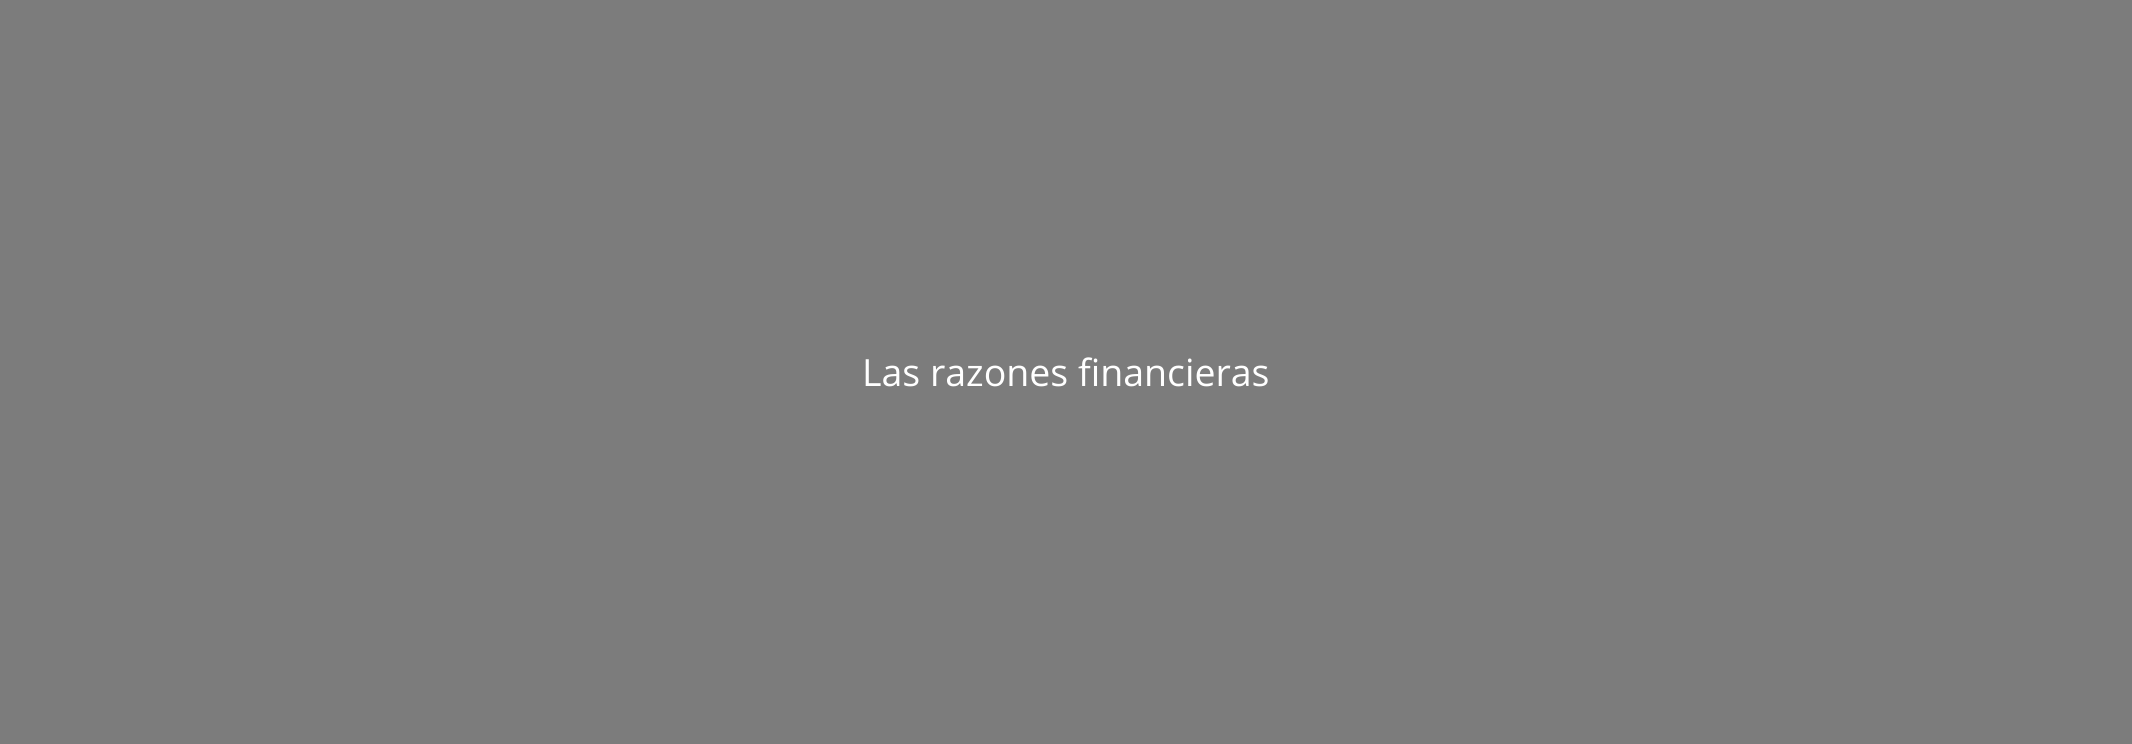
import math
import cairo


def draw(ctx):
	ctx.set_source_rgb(0.486, 0.486, 0.486)
	ctx.paint()
	ctx.select_font_face('Open Sans')
	ctx.set_font_size(37.5)
	ctx.set_source_rgb(1, 1, 1)
	ctx.move_to(862, 386)
	ctx.show_text('Las razones financieras')


surface = cairo.ImageSurface(cairo.FORMAT_RGB24, 2132, 744)
ctx = cairo.Context(surface)
options = cairo.FontOptions()
options.set_hint_metrics(cairo.HINT_METRICS_OFF)
options.set_hint_style(cairo.HINT_STYLE_NONE)
ctx.set_font_options(options)
ctx.set_miter_limit(4)
draw(ctx)
surface.write_to_png('image.png')
